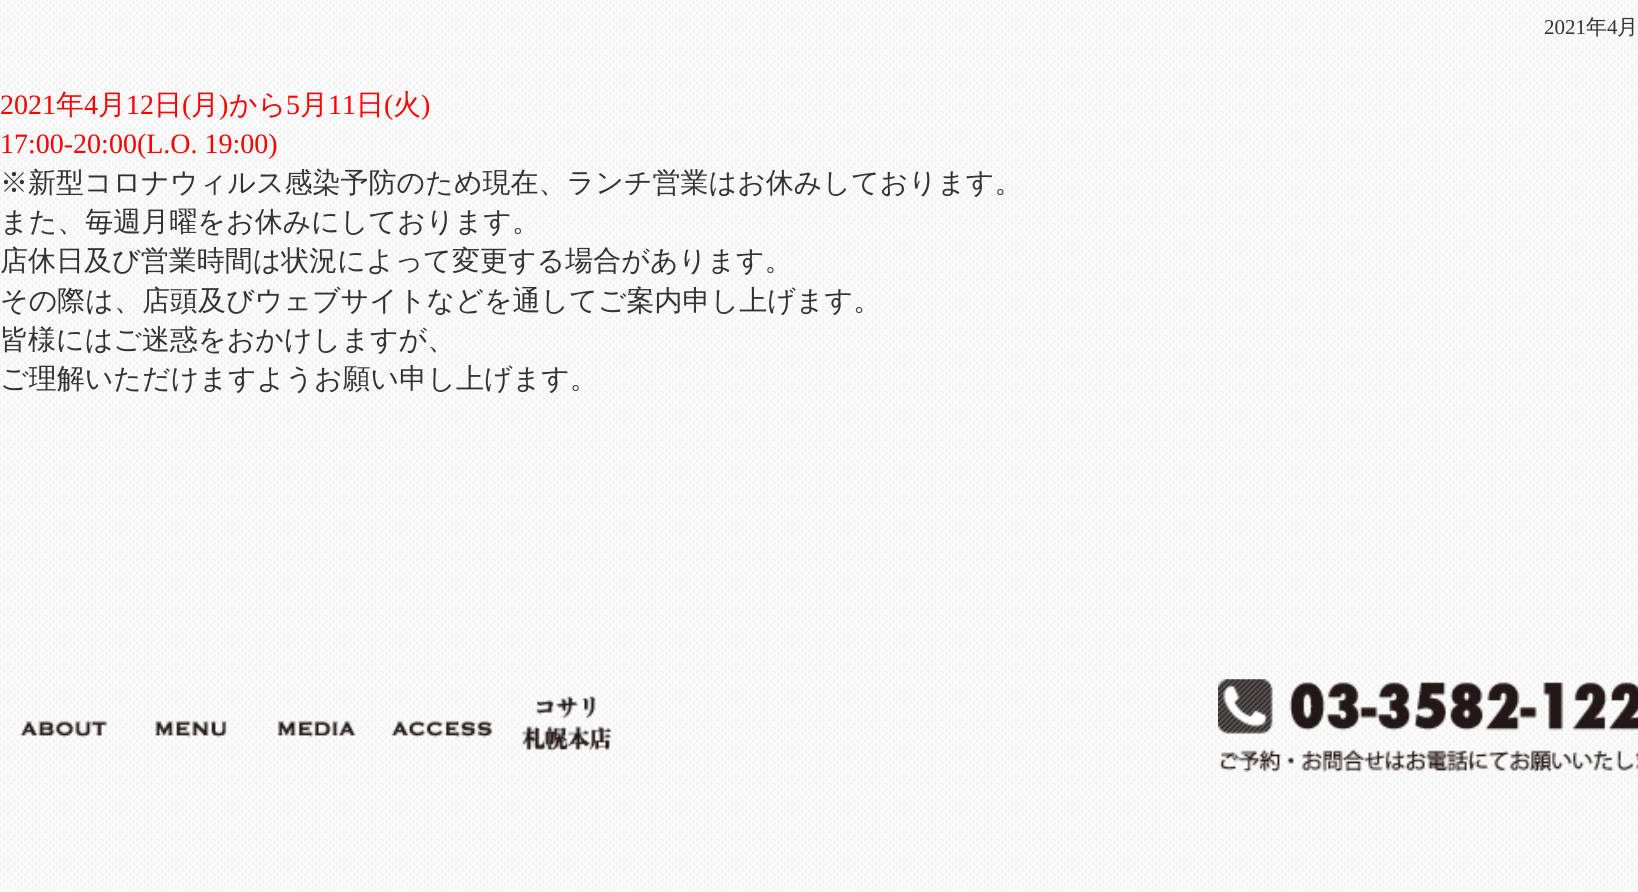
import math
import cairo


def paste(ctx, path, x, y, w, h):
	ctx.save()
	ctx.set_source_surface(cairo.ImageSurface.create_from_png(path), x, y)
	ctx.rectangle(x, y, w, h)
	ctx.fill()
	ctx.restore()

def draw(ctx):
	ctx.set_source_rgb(1, 1, 1)
	ctx.paint()
	paste(ctx, 'media/1.png', 0, 0, 1638, 892)
	ctx.select_font_face('Liberation Serif')
	ctx.set_font_size(21)
	ctx.set_source_rgb(0.2, 0.2, 0.2)
	ctx.move_to(1544, 34)
	ctx.show_text('2021')
	ctx.select_font_face('WenQuanYi Zen Hei Medium')
	ctx.move_to(1586, 34)
	ctx.show_text('年')
	ctx.select_font_face('Liberation Serif')
	ctx.move_to(1607, 34)
	ctx.show_text('4')
	ctx.select_font_face('WenQuanYi Zen Hei Medium')
	ctx.move_to(1617, 34)
	ctx.show_text('月')
	ctx.select_font_face('Liberation Serif')
	ctx.set_font_size(28)
	ctx.set_source_rgb(1, 0, 0)
	ctx.move_to(0, 114)
	ctx.show_text('2021')
	ctx.select_font_face('WenQuanYi Zen Hei Medium')
	ctx.move_to(56, 114)
	ctx.show_text('年')
	ctx.select_font_face('Liberation Serif')
	ctx.move_to(84, 114)
	ctx.show_text('4')
	ctx.select_font_face('WenQuanYi Zen Hei Medium')
	ctx.move_to(98, 114)
	ctx.show_text('月')
	ctx.select_font_face('Liberation Serif')
	ctx.move_to(126, 114)
	ctx.show_text('12')
	ctx.select_font_face('WenQuanYi Zen Hei Medium')
	ctx.move_to(154, 114)
	ctx.show_text('日')
	ctx.select_font_face('Liberation Serif')
	ctx.move_to(182, 114)
	ctx.show_text('(')
	ctx.select_font_face('WenQuanYi Zen Hei Medium')
	ctx.move_to(191, 114)
	ctx.show_text('月')
	ctx.select_font_face('Liberation Serif')
	ctx.move_to(219, 114)
	ctx.show_text(')')
	ctx.select_font_face('WenQuanYi Zen Hei Medium')
	ctx.move_to(229, 114)
	ctx.show_text('から')
	ctx.select_font_face('Liberation Serif')
	ctx.move_to(286, 114)
	ctx.show_text('5')
	ctx.select_font_face('WenQuanYi Zen Hei Medium')
	ctx.move_to(300, 114)
	ctx.show_text('月')
	ctx.select_font_face('Liberation Serif')
	ctx.move_to(328, 114)
	ctx.show_text('11')
	ctx.select_font_face('WenQuanYi Zen Hei Medium')
	ctx.move_to(356, 114)
	ctx.show_text('日')
	ctx.select_font_face('Liberation Serif')
	ctx.move_to(384, 114)
	ctx.show_text('(')
	ctx.select_font_face('WenQuanYi Zen Hei Medium')
	ctx.move_to(393, 114)
	ctx.show_text('火')
	ctx.select_font_face('Liberation Serif')
	ctx.move_to(421, 114)
	ctx.show_text(')')
	ctx.move_to(0, 153)
	ctx.show_text('17:00-20:00(L.O. 19:00)')
	ctx.select_font_face('WenQuanYi Zen Hei Medium')
	ctx.set_source_rgb(0.2, 0.2, 0.2)
	for x, y, s in [
		(0, 192, '※新型コロナウィルス感染予防のため現在、ランチ営業はお休みしております。'),
		(0, 231, 'また、毎週月曜をお休みにしております。'),
		(0, 270, '店休日及び営業時間は状況によって変更する場合があります。'),
		(0, 310, 'その際は、店頭及びウェブサイトなどを通してご案内申し上げます。'),
		(0, 349, '皆様にはご迷惑をおかけしますが、'),
		(0, 388, 'ご理解いただけますようお願い申し上げます。'),
	]:
		ctx.move_to(x, y)
		ctx.show_text(s)
	paste(ctx, 'media/2.png', 20, 720, 88, 18)
	paste(ctx, 'media/3.png', 155, 720, 73, 18)
	paste(ctx, 'media/4.png', 277, 720, 79, 18)
	paste(ctx, 'media/5.png', 391, 720, 102, 18)
	paste(ctx, 'media/6.png', 521, 696, 91, 56)
	paste(ctx, 'media/7.png', 1218, 679, 420, 93)


surface = cairo.ImageSurface(cairo.FORMAT_RGB24, 1638, 892)
ctx = cairo.Context(surface)
options = cairo.FontOptions()
options.set_hint_metrics(cairo.HINT_METRICS_OFF)
options.set_hint_style(cairo.HINT_STYLE_NONE)
ctx.set_font_options(options)
ctx.set_miter_limit(4)
draw(ctx)
surface.write_to_png('image.png')
